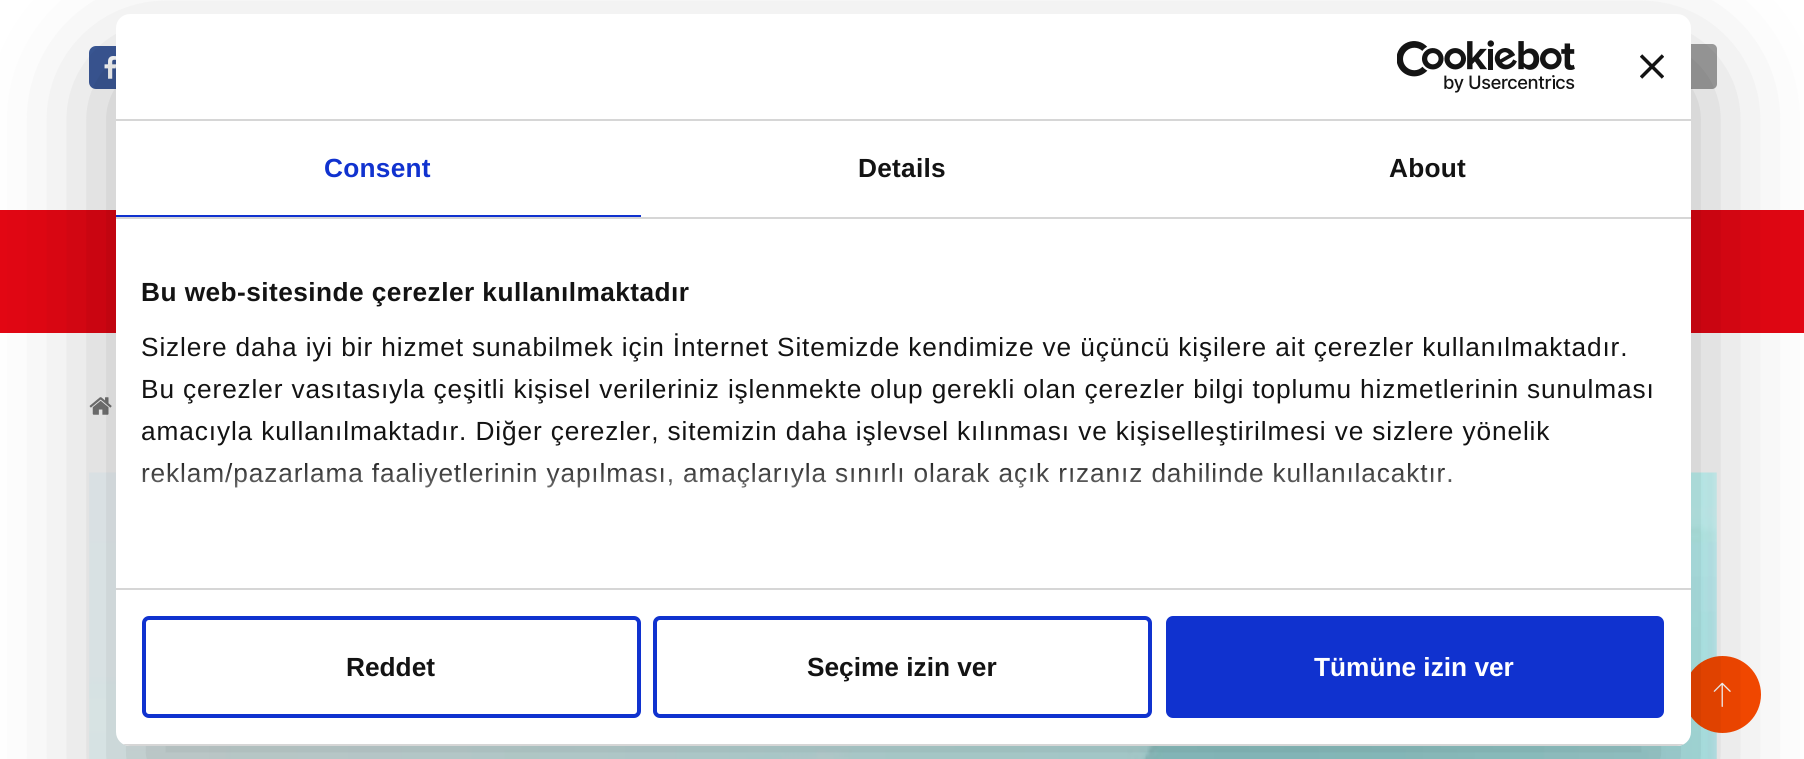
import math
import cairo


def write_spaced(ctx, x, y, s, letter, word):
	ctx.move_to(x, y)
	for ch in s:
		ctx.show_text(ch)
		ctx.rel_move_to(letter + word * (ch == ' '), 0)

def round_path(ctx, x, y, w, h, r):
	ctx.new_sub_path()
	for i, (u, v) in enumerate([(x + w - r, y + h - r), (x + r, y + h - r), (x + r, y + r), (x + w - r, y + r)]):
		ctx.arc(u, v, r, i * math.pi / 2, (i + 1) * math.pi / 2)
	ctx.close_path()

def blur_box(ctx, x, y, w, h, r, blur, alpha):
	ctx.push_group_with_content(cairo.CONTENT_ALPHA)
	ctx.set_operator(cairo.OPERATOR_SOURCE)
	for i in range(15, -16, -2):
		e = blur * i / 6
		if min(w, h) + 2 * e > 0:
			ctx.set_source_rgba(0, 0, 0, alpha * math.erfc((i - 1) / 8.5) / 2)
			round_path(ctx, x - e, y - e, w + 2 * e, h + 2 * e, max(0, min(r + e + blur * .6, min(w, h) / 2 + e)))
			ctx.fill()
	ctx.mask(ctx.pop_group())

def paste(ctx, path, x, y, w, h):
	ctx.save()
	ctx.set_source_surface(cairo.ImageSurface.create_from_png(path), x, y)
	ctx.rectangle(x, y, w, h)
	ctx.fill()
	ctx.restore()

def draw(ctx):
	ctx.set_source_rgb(1, 1, 1)
	ctx.paint()
	ctx.set_source_rgb(0.231, 0.349, 0.596)
	round_path(ctx, 89, 46, 44, 43, 7)
	ctx.fill()
	paste(ctx, 'media/1.png', 104, 56, 12, 23)
	ctx.set_source_rgb(0.624, 0.624, 0.624)
	round_path(ctx, 1530, 44, 187, 45, 5)
	ctx.fill()
	ctx.set_source_rgb(0.89, 0.024, 0.075)
	ctx.rectangle(0, 210, 1804, 123)
	ctx.fill()
	paste(ctx, 'media/2.png', 89, 397, 23, 18)
	paste(ctx, 'media/3.png', 89, 472, 1628, 287)
	ctx.set_source_rgb(0.988, 0.29, 0)
	ctx.arc(1722.5, 694.5, 38.5, 0, 2 * math.pi)
	ctx.fill()
	paste(ctx, 'media/4.png', 1713, 682, 18, 25)
	ctx.set_source_rgb(0, 0, 0)
	blur_box(ctx, 116, 70, 1575, 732, 14, 59.5, 0.3)
	ctx.set_source_rgb(1, 1, 1)
	round_path(ctx, 116, 14, 1575, 732, 14)
	ctx.fill()
	ctx.set_source_rgb(0.839, 0.839, 0.839)
	ctx.rectangle(116, 119, 1575, 2)
	ctx.fill()
	paste(ctx, 'media/5.png', 1397, 40, 178, 53)
	paste(ctx, 'media/6.png', 1640, 54, 24, 25)
	ctx.rectangle(116, 217, 1575, 2)
	ctx.fill()
	ctx.set_source_rgb(0.063, 0.196, 0.812)
	ctx.rectangle(116, 215, 525, 2)
	ctx.fill()
	ctx.select_font_face('Liberation Sans', cairo.FONT_SLANT_NORMAL, cairo.FONT_WEIGHT_BOLD)
	ctx.set_font_size(26.25)
	write_spaced(ctx, 324, 177, 'Consent', 0.25, 0)
	ctx.set_source_rgb(0.078, 0.078, 0.078)
	write_spaced(ctx, 858, 177, 'Details', 0.25, 0)
	write_spaced(ctx, 1389, 177, 'About', 0.25, 0)
	ctx.set_source_rgb(0.839, 0.839, 0.839)
	ctx.rectangle(116, 588, 1575, 2)
	ctx.fill()
	ctx.set_source_rgb(0.078, 0.078, 0.078)
	write_spaced(ctx, 141, 301, 'Bu web-sitesinde çerezler kullanılmaktadır', 0.45, 0)
	ctx.select_font_face('Liberation Sans')
	for x, y, s in [
		(141, 356, 'Sizlere daha iyi bir hizmet sunabilmek için İnternet Sitemizde kendimize ve üçüncü kişilere ait çerezler kullanılmaktadır.'),
		(141, 398, 'Bu çerezler vasıtasıyla çeşitli kişisel verileriniz işlenmekte olup gerekli olan çerezler bilgi toplumu hizmetlerinin sunulması'),
		(141, 440, 'amacıyla kullanılmaktadır. Diğer çerezler, sitemizin daha işlevsel kılınması ve kişiselleştirilmesi ve sizlere yönelik'),
		(141, 482, 'reklam/pazarlama faaliyetlerinin yapılması, amaçlarıyla sınırlı olarak açık rızanız dahilinde kullanılacaktır.'),
	]:
		write_spaced(ctx, x, y, s, 0.88, 0)
	gradient = cairo.LinearGradient(892, 588, 892, 457)
	gradient.add_color_stop_rgba(0, 1, 1, 1, 1)
	gradient.add_color_stop_rgba(0.5, 1, 1, 1, 0.8)
	gradient.add_color_stop_rgba(1, 1, 1, 1, 0)
	ctx.set_source(gradient)
	ctx.rectangle(142, 463, 1309, 25)
	ctx.fill()
	ctx.save()
	round_path(ctx, 116, 14, 1575, 732, 14)
	ctx.clip()
	ctx.set_source_rgb(0.839, 0.839, 0.839)
	ctx.rectangle(116, 744, 1575, 2)
	ctx.fill()
	ctx.restore()
	round_path(ctx, 144, 618, 495, 98, 5)
	ctx.set_source_rgb(0.063, 0.196, 0.812)
	ctx.set_line_width(4)
	ctx.stroke()
	ctx.select_font_face('Liberation Sans', cairo.FONT_SLANT_NORMAL, cairo.FONT_WEIGHT_BOLD)
	ctx.set_source_rgb(0.078, 0.078, 0.078)
	ctx.move_to(346, 676)
	ctx.show_text('Reddet')
	round_path(ctx, 655, 618, 495, 98, 5)
	ctx.set_source_rgb(0.063, 0.196, 0.812)
	ctx.stroke()
	ctx.set_source_rgb(0.078, 0.078, 0.078)
	ctx.move_to(807, 676)
	ctx.show_text('Seçime izin ver')
	ctx.set_source_rgb(0.063, 0.196, 0.812)
	round_path(ctx, 1168, 618, 494, 98, 5)
	ctx.fill_preserve()
	ctx.stroke()
	ctx.set_source_rgb(1, 1, 1)
	ctx.move_to(1314, 676)
	ctx.show_text('Tümüne izin ver')


surface = cairo.ImageSurface(cairo.FORMAT_RGB24, 1804, 759)
ctx = cairo.Context(surface)
options = cairo.FontOptions()
options.set_hint_metrics(cairo.HINT_METRICS_OFF)
options.set_hint_style(cairo.HINT_STYLE_NONE)
ctx.set_font_options(options)
ctx.set_miter_limit(4)
draw(ctx)
surface.write_to_png('image.png')
